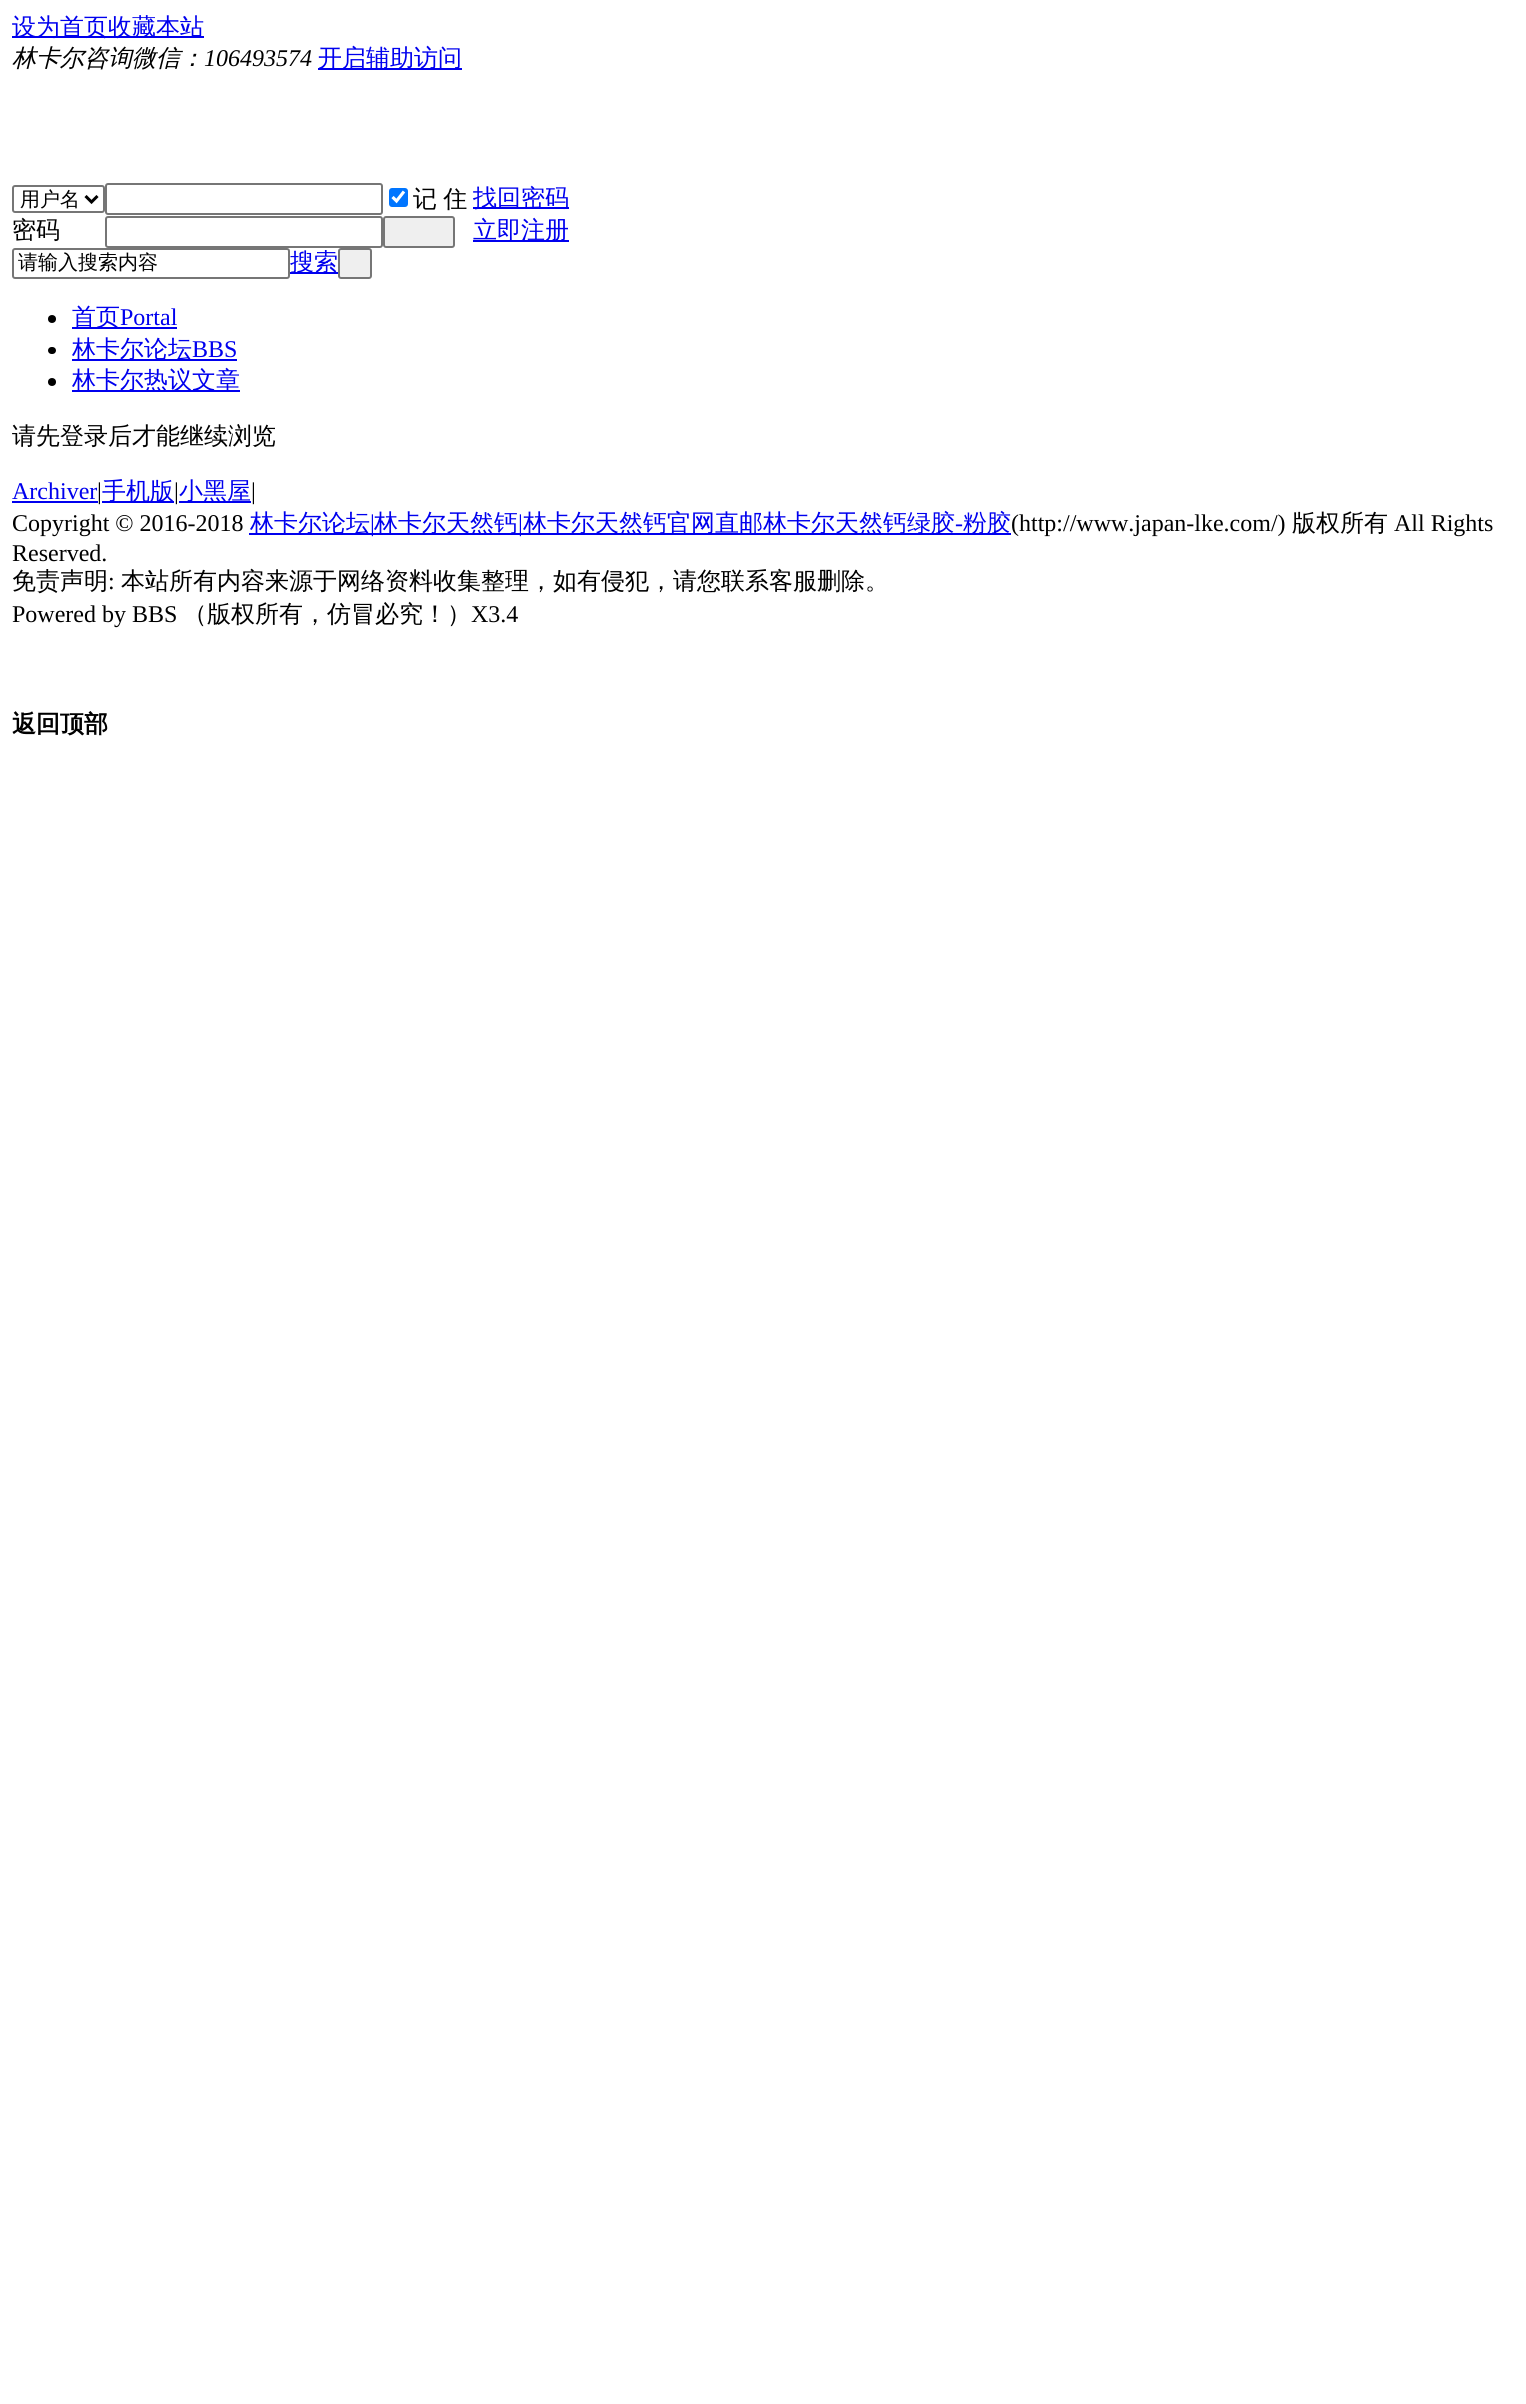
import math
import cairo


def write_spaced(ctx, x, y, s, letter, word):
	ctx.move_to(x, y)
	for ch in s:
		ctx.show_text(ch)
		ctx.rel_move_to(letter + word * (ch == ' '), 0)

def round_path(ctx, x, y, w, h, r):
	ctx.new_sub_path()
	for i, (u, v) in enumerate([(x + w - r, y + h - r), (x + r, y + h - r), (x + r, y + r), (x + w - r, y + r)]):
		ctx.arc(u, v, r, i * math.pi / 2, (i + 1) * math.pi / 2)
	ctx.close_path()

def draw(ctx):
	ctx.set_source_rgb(1, 1, 1)
	ctx.paint()
	ctx.set_source_rgb(0, 0, 0.933)
	ctx.rectangle(12, 36, 192, 2)
	ctx.fill()
	ctx.select_font_face('WenQuanYi Zen Hei Medium')
	ctx.set_font_size(24)
	ctx.move_to(12, 35)
	ctx.show_text('设为首页收藏本站')
	ctx.select_font_face('WenQuanYi Zen Hei Medium', cairo.FONT_SLANT_ITALIC)
	ctx.set_source_rgb(0, 0, 0)
	ctx.move_to(12, 66)
	ctx.show_text('林卡尔咨询微信：')
	ctx.select_font_face('Liberation Serif', cairo.FONT_SLANT_ITALIC)
	ctx.move_to(204, 66)
	ctx.show_text('106493574')
	ctx.set_source_rgb(0, 0, 0.933)
	ctx.rectangle(318, 68, 144, 2)
	ctx.fill()
	ctx.select_font_face('WenQuanYi Zen Hei Medium')
	ctx.move_to(318, 66)
	ctx.show_text('开启辅助访问')
	round_path(ctx, 13, 186, 91, 26, 2)
	ctx.set_source_rgb(0.463, 0.463, 0.463)
	ctx.stroke()
	ctx.new_path()
	ctx.move_to(85.5, 196)
	ctx.line_to(91.5, 202)
	ctx.line_to(97.5, 196)
	ctx.set_source_rgb(0, 0, 0)
	ctx.set_line_width(3)
	ctx.stroke()
	ctx.set_font_size(20)
	ctx.move_to(20, 206)
	ctx.show_text('用户名')
	round_path(ctx, 106, 184, 276, 30, 2)
	ctx.set_source_rgb(0.463, 0.463, 0.463)
	ctx.set_line_width(2)
	ctx.stroke()
	ctx.set_source_rgb(0, 0.459, 1)
	round_path(ctx, 389, 188, 19, 19, 3)
	ctx.fill()
	ctx.new_path()
	ctx.move_to(392.5, 197)
	ctx.line_to(396.5, 201)
	ctx.line_to(404, 191.5)
	ctx.set_source_rgb(1, 1, 1)
	ctx.set_line_width(3.1)
	ctx.stroke()
	ctx.set_font_size(24)
	ctx.set_source_rgb(0, 0, 0)
	write_spaced(ctx, 413, 207, '记 住', 0, -1)
	ctx.set_source_rgb(0, 0, 0.933)
	ctx.rectangle(473, 207, 96, 2)
	ctx.fill()
	ctx.move_to(473, 206)
	ctx.show_text('找回密码')
	ctx.set_source_rgb(0, 0, 0)
	ctx.move_to(12, 238)
	ctx.show_text('密码')
	round_path(ctx, 106, 217, 276, 30, 2)
	ctx.set_source_rgb(0.463, 0.463, 0.463)
	ctx.set_line_width(2)
	ctx.stroke()
	ctx.set_source_rgb(0.937, 0.937, 0.937)
	round_path(ctx, 384, 217, 70, 30, 2)
	ctx.fill_preserve()
	ctx.set_source_rgb(0.463, 0.463, 0.463)
	ctx.stroke()
	ctx.set_source_rgb(0, 0, 0.933)
	ctx.rectangle(473, 240, 96, 2)
	ctx.fill()
	ctx.move_to(473, 238)
	ctx.show_text('立即注册')
	round_path(ctx, 13, 249, 276, 29, 2)
	ctx.set_source_rgb(0.463, 0.463, 0.463)
	ctx.stroke()
	ctx.set_font_size(20)
	ctx.set_source_rgb(0, 0, 0)
	ctx.move_to(18, 269)
	ctx.show_text('请输入搜索内容')
	ctx.set_source_rgb(0, 0, 0.933)
	ctx.rectangle(290, 272, 48, 2)
	ctx.fill()
	ctx.set_font_size(24)
	ctx.move_to(290, 270)
	ctx.show_text('搜索')
	ctx.set_source_rgb(0.937, 0.937, 0.937)
	round_path(ctx, 339, 249, 32, 29, 2)
	ctx.fill_preserve()
	ctx.set_source_rgb(0.463, 0.463, 0.463)
	ctx.stroke()
	ctx.set_source_rgb(0, 0, 0)
	ctx.arc(52, 319, 4, 0, 2 * math.pi)
	ctx.fill()
	ctx.set_source_rgb(0, 0, 0.933)
	ctx.rectangle(72, 327, 105, 2)
	ctx.fill()
	ctx.move_to(72, 325)
	ctx.show_text('首页')
	ctx.select_font_face('Liberation Serif')
	ctx.move_to(120, 325)
	ctx.show_text('Portal')
	ctx.set_source_rgb(0, 0, 0)
	round_path(ctx, 48, 347, 8, 7, 3.5)
	ctx.fill()
	ctx.set_source_rgb(0, 0, 0.933)
	ctx.rectangle(72, 359, 165, 2)
	ctx.fill()
	ctx.select_font_face('WenQuanYi Zen Hei Medium')
	ctx.move_to(72, 357)
	ctx.show_text('林卡尔论坛')
	ctx.select_font_face('Liberation Serif')
	ctx.move_to(192, 357)
	ctx.show_text('BBS')
	ctx.set_source_rgb(0, 0, 0)
	ctx.new_path()
	ctx.arc(52, 382, 4, 0, 2 * math.pi)
	ctx.fill()
	ctx.set_source_rgb(0, 0, 0.933)
	ctx.rectangle(72, 390, 168, 2)
	ctx.fill()
	ctx.select_font_face('WenQuanYi Zen Hei Medium')
	ctx.move_to(72, 388)
	ctx.show_text('林卡尔热议文章')
	ctx.set_source_rgb(0, 0, 0)
	ctx.move_to(12, 444)
	ctx.show_text('请先登录后才能继续浏览')
	ctx.select_font_face('Liberation Serif')
	ctx.set_source_rgb(0, 0, 0.933)
	ctx.move_to(12, 499)
	ctx.show_text('Archiver')
	ctx.rectangle(12, 501, 86, 2)
	ctx.fill()
	ctx.set_source_rgb(0, 0, 0)
	ctx.move_to(97, 499)
	ctx.show_text('|')
	ctx.set_source_rgb(0, 0, 0.933)
	ctx.rectangle(102, 501, 72, 2)
	ctx.fill()
	ctx.select_font_face('WenQuanYi Zen Hei Medium')
	ctx.move_to(102, 499)
	ctx.show_text('手机版')
	ctx.select_font_face('Liberation Serif')
	ctx.set_source_rgb(0, 0, 0)
	ctx.move_to(174, 499)
	ctx.show_text('|')
	ctx.set_source_rgb(0, 0, 0.933)
	ctx.rectangle(179, 501, 72, 2)
	ctx.fill()
	ctx.select_font_face('WenQuanYi Zen Hei Medium')
	ctx.move_to(179, 499)
	ctx.show_text('小黑屋')
	ctx.select_font_face('Liberation Serif')
	ctx.set_source_rgb(0, 0, 0)
	ctx.move_to(251, 499)
	ctx.show_text('|')
	ctx.move_to(12, 531)
	ctx.show_text('Copyright © 2016-2018')
	ctx.set_source_rgb(0, 0, 0.933)
	ctx.rectangle(249, 533, 762, 2)
	ctx.fill()
	ctx.select_font_face('WenQuanYi Zen Hei Medium')
	ctx.move_to(250, 531)
	ctx.show_text('林卡尔论坛')
	ctx.select_font_face('Liberation Serif')
	ctx.move_to(370, 531)
	ctx.show_text('|')
	ctx.select_font_face('WenQuanYi Zen Hei Medium')
	ctx.move_to(374, 531)
	ctx.show_text('林卡尔天然钙')
	ctx.select_font_face('Liberation Serif')
	ctx.move_to(518, 531)
	ctx.show_text('|')
	ctx.select_font_face('WenQuanYi Zen Hei Medium')
	ctx.move_to(523, 531)
	ctx.show_text('林卡尔天然钙官网直邮林卡尔天然钙绿胶')
	ctx.select_font_face('Liberation Serif')
	ctx.move_to(955, 531)
	ctx.show_text('-')
	ctx.select_font_face('WenQuanYi Zen Hei Medium')
	ctx.move_to(963, 531)
	ctx.show_text('粉胶')
	ctx.select_font_face('Liberation Serif')
	ctx.set_source_rgb(0, 0, 0)
	ctx.move_to(1011, 531)
	ctx.show_text('(http://www.japan-lke.com/)')
	ctx.select_font_face('WenQuanYi Zen Hei Medium')
	ctx.move_to(1292, 531)
	ctx.show_text('版权所有')
	ctx.select_font_face('Liberation Serif')
	ctx.move_to(1394, 531)
	ctx.show_text('All Rights')
	ctx.move_to(12, 561)
	ctx.show_text('Reserved.')
	ctx.select_font_face('WenQuanYi Zen Hei Medium')
	ctx.move_to(12, 589)
	ctx.show_text('免责声明')
	ctx.select_font_face('Liberation Serif')
	ctx.move_to(108, 589)
	ctx.show_text(':')
	ctx.select_font_face('WenQuanYi Zen Hei Medium')
	ctx.move_to(121, 589)
	ctx.show_text('本站所有内容来源于网络资料收集整理，如有侵犯，请您联系客服删除。')
	ctx.select_font_face('Liberation Serif')
	ctx.move_to(12, 622)
	ctx.show_text('Powered by BBS')
	ctx.select_font_face('WenQuanYi Zen Hei Medium')
	ctx.move_to(183, 622)
	ctx.show_text('（版权所有，仿冒必究！）')
	ctx.select_font_face('Liberation Serif')
	ctx.move_to(471, 622)
	ctx.show_text('X3.4')
	ctx.select_font_face('WenQuanYi Zen Hei', cairo.FONT_SLANT_NORMAL, cairo.FONT_WEIGHT_BOLD)
	ctx.move_to(12, 732)
	ctx.show_text('返回顶部')


surface = cairo.ImageSurface(cairo.FORMAT_RGB24, 1526, 2404)
ctx = cairo.Context(surface)
options = cairo.FontOptions()
options.set_hint_metrics(cairo.HINT_METRICS_OFF)
options.set_hint_style(cairo.HINT_STYLE_NONE)
ctx.set_font_options(options)
ctx.set_miter_limit(4)
draw(ctx)
surface.write_to_png('image.png')
